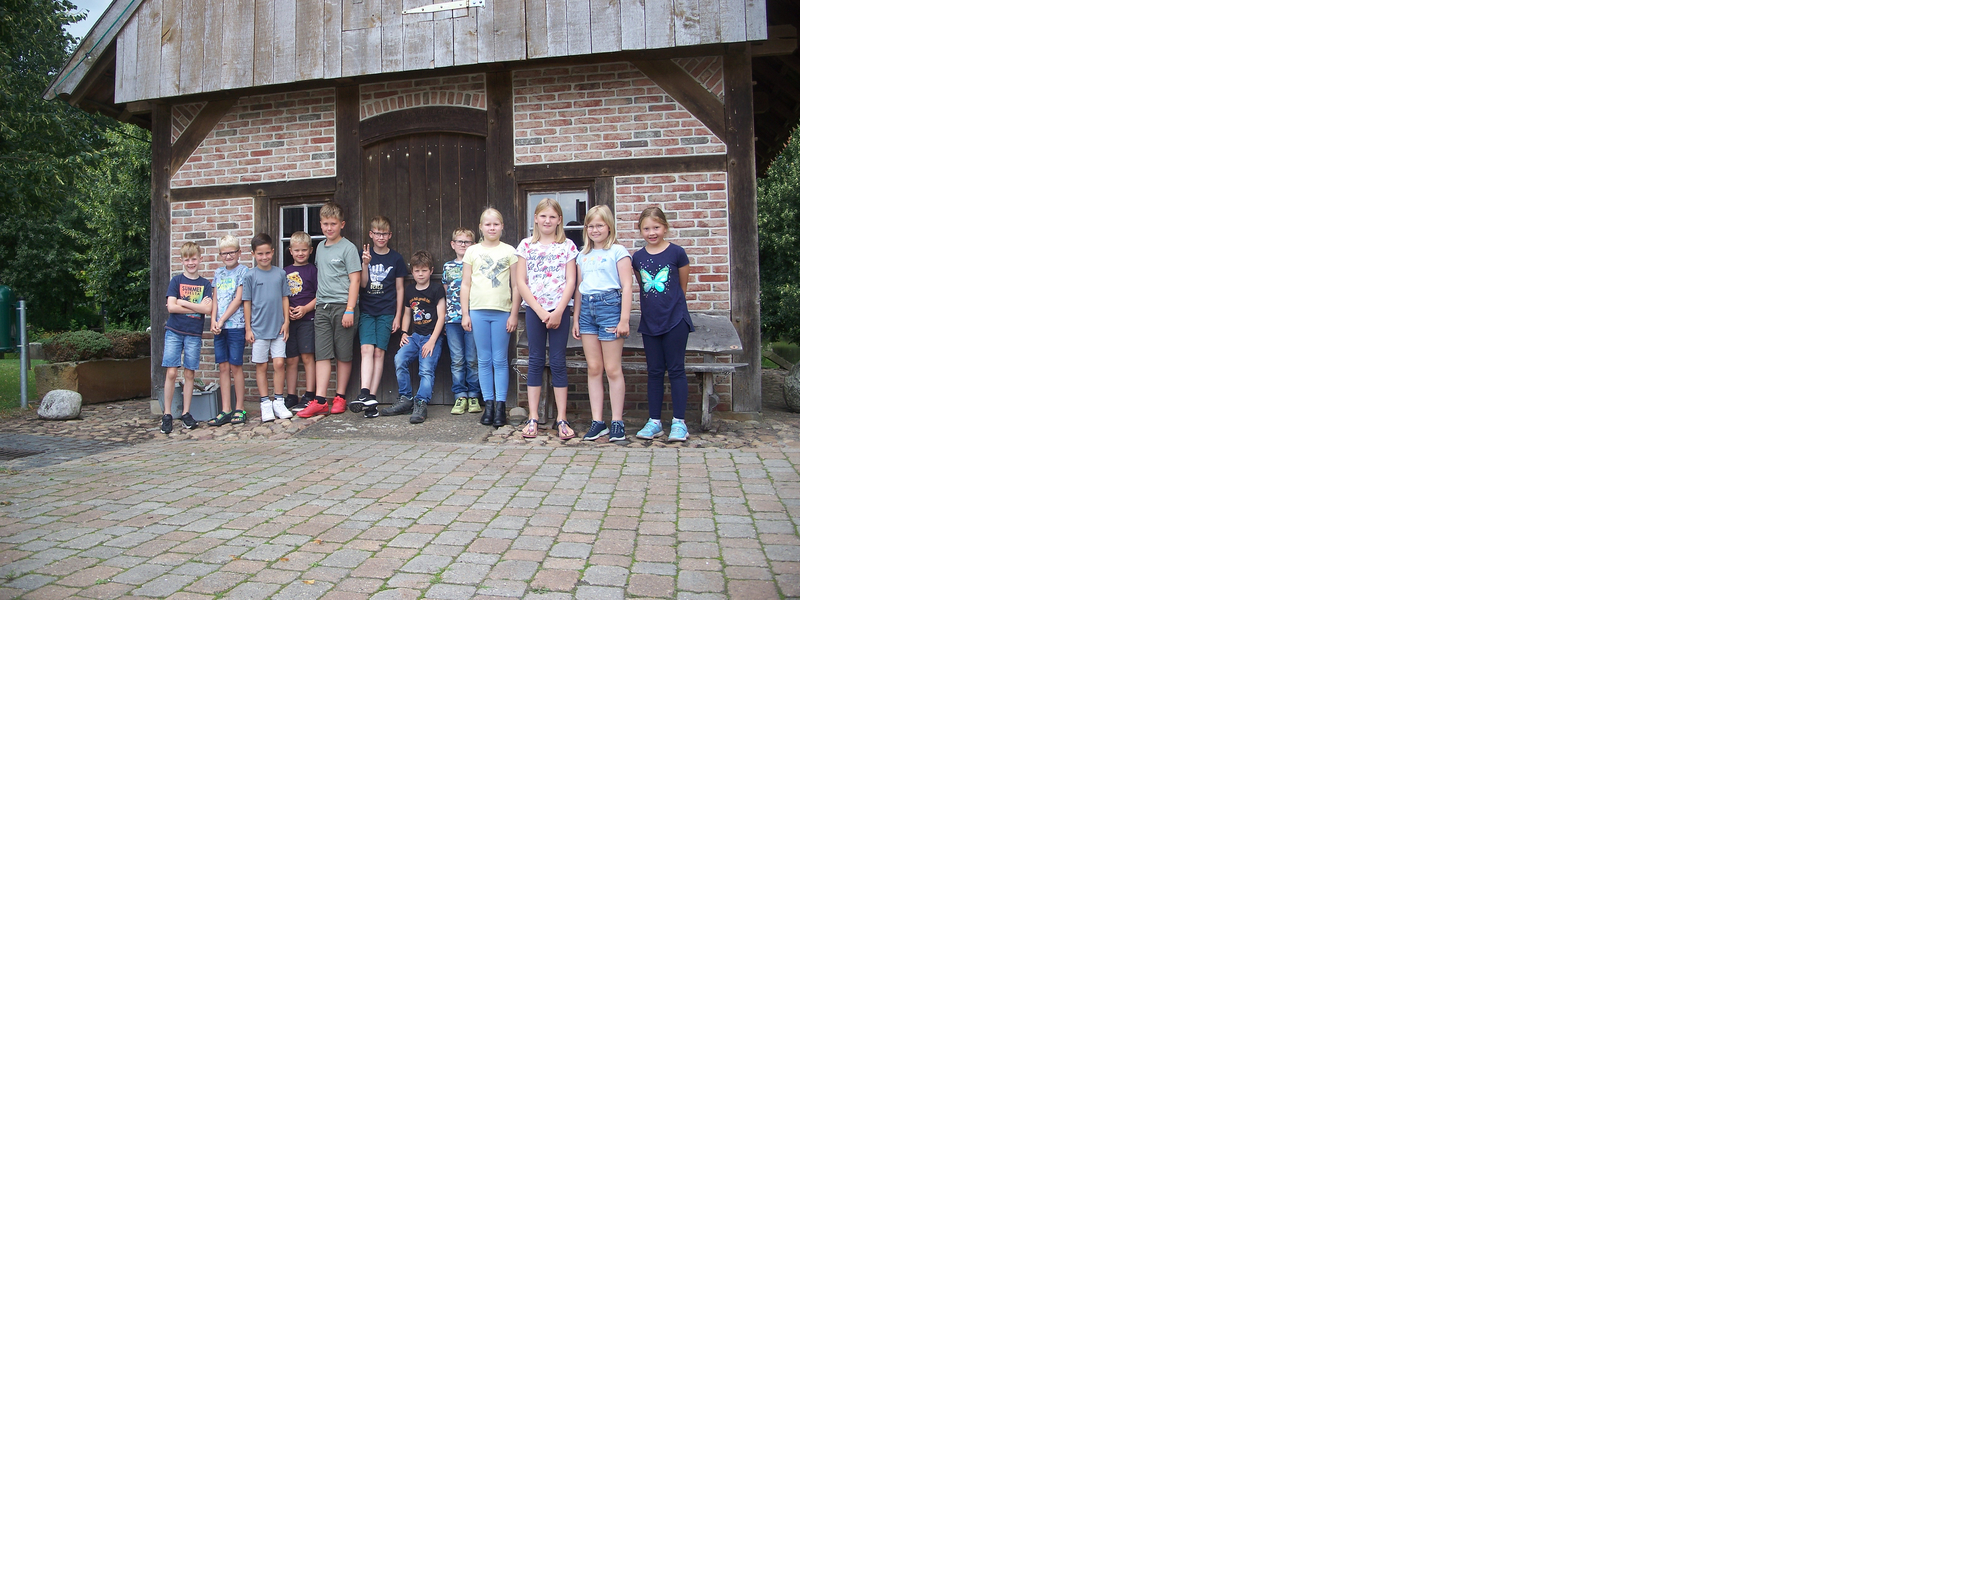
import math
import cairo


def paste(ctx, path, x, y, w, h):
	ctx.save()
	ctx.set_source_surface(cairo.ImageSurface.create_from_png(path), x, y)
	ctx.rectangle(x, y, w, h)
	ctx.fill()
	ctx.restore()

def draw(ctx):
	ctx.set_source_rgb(1, 1, 1)
	ctx.paint()
	paste(ctx, 'media/1.png', 0, 0, 800, 600)


surface = cairo.ImageSurface(cairo.FORMAT_RGB24, 1982, 1575)
ctx = cairo.Context(surface)
options = cairo.FontOptions()
options.set_hint_metrics(cairo.HINT_METRICS_OFF)
options.set_hint_style(cairo.HINT_STYLE_NONE)
ctx.set_font_options(options)
ctx.set_miter_limit(4)
draw(ctx)
surface.write_to_png('image.png')
